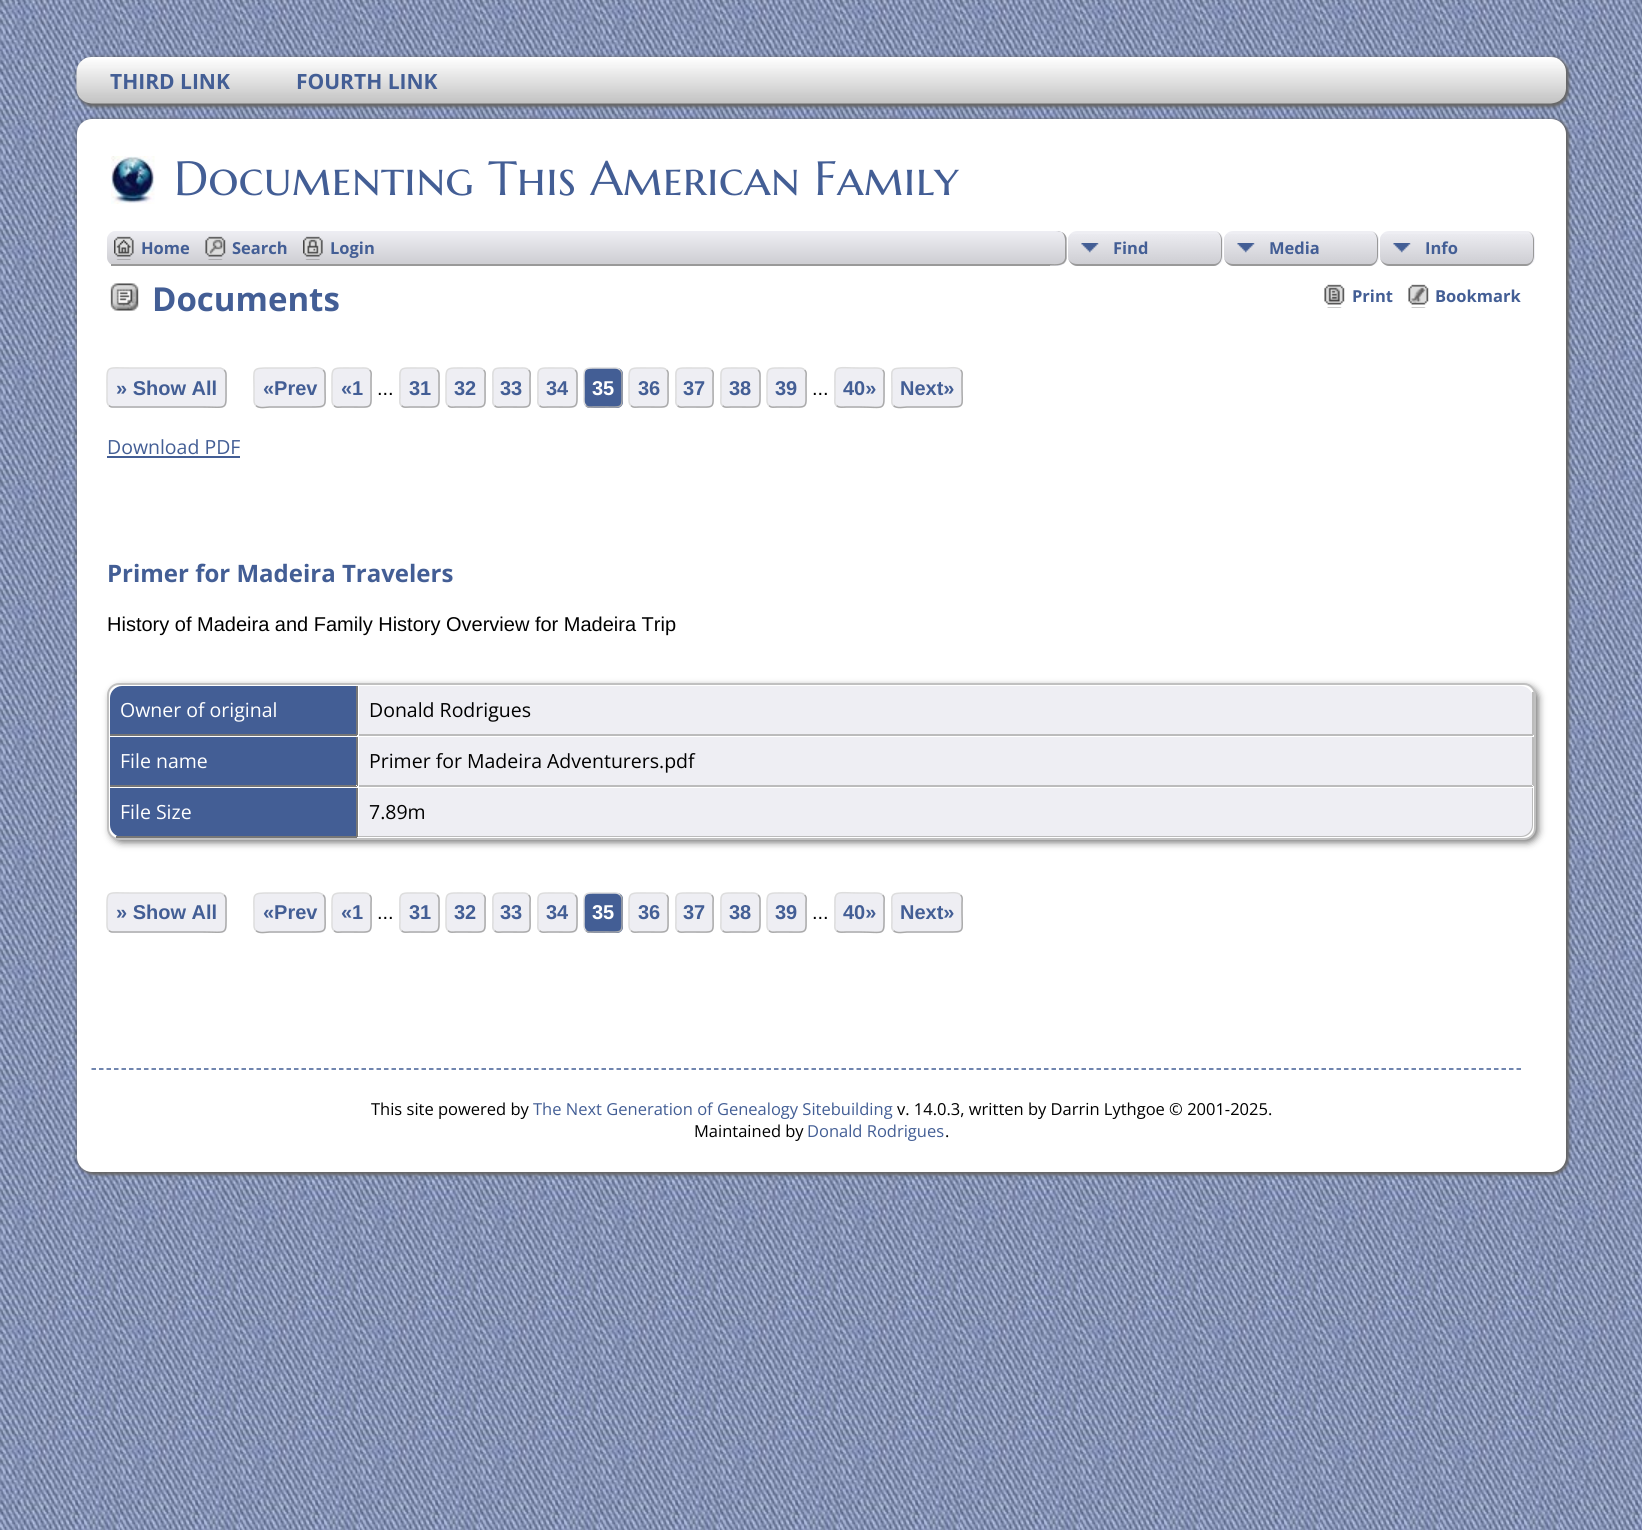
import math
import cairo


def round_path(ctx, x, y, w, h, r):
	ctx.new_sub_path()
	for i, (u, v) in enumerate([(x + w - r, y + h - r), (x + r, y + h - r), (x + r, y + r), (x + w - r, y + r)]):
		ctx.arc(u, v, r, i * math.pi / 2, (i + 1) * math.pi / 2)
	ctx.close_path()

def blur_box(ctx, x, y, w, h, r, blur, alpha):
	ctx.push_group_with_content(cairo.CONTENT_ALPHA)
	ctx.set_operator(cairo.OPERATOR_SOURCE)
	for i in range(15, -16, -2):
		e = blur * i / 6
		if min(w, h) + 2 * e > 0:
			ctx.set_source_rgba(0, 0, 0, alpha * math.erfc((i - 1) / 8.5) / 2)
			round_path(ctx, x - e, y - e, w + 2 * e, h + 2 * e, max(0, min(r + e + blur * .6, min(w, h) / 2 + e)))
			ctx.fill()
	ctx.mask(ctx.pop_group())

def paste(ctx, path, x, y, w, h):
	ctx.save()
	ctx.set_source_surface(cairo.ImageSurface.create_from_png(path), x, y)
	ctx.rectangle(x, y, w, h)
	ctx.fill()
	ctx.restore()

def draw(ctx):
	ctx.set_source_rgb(1, 1, 1)
	ctx.paint()
	paste(ctx, 'media/1.png', 0, 0, 1642, 1530)
	ctx.set_source_rgb(0.4, 0.4, 0.4)
	blur_box(ctx, 77, 57, 1492, 50, 17, 1.5, 1)
	paste(ctx, 'media/2.png', 76, 57, 1490, 47)
	ctx.select_font_face('Open Sans', cairo.FONT_SLANT_NORMAL, cairo.FONT_WEIGHT_BOLD)
	ctx.set_font_size(21)
	ctx.set_source_rgb(0.263, 0.369, 0.584)
	ctx.move_to(110, 89)
	ctx.show_text('THIRD LINK')
	ctx.move_to(296, 89)
	ctx.show_text('FOURTH LINK')
	ctx.set_source_rgb(0.4, 0.4, 0.4)
	blur_box(ctx, 77, 119, 1492, 1056, 17, 1.5, 1)
	ctx.set_source_rgb(1, 1, 1)
	round_path(ctx, 77, 119, 1489, 1053, 15)
	ctx.fill()
	paste(ctx, 'media/3.png', 111, 156, 44, 48)
	ctx.select_font_face('Marcellus SC')
	ctx.set_font_size(48)
	ctx.set_source_rgb(0.263, 0.369, 0.584)
	ctx.move_to(174, 195)
	ctx.show_text('Documenting This American Family')
	ctx.set_source_rgb(0.933, 0.933, 0.953)
	round_path(ctx, 107, 231, 1429, 35, 9)
	ctx.fill()
	ctx.save()
	round_path(ctx, 107, 231, 1429, 35, 9)
	ctx.clip()
	gradient = cairo.LinearGradient(821, 231, 821, 264)
	gradient.add_color_stop_rgba(0, 0.933, 0.933, 0.953, 1)
	gradient.add_color_stop_rgba(1, 0.808, 0.808, 0.827, 1)
	ctx.set_source(gradient)
	ctx.new_path()
	ctx.move_to(116, 231)
	ctx.line_to(1527, 231)
	ctx.curve_to(1532, 231, 1536, 235, 1536, 240)
	ctx.line_to(1536, 264)
	ctx.line_to(107, 264)
	ctx.line_to(107, 240)
	ctx.curve_to(107, 235, 111, 231, 116, 231)
	ctx.close_path()
	ctx.fill()
	ctx.restore()
	ctx.set_source_rgb(0.6, 0.6, 0.6)
	ctx.rectangle(111, 264, 939, 2)
	ctx.fill()
	paste(ctx, 'media/4.png', 114, 236, 20, 24)
	ctx.select_font_face('Open Sans', cairo.FONT_SLANT_NORMAL, cairo.FONT_WEIGHT_BOLD)
	ctx.set_font_size(16.5)
	ctx.set_source_rgb(0.263, 0.369, 0.584)
	ctx.move_to(141, 254)
	ctx.show_text('Home')
	paste(ctx, 'media/5.png', 205, 236, 21, 24)
	ctx.move_to(232, 254)
	ctx.show_text('Search')
	paste(ctx, 'media/6.png', 303, 236, 20, 24)
	ctx.move_to(330, 254)
	ctx.show_text('Login')
	ctx.set_source_rgb(1, 1, 1)
	ctx.rectangle(1058, 231, 478, 35)
	ctx.fill()
	ctx.save()
	ctx.new_path()
	ctx.move_to(1050, 231)
	ctx.line_to(1058, 231)
	ctx.curve_to(1063, 231, 1067, 235, 1067, 240)
	ctx.line_to(1067, 257)
	ctx.curve_to(1067, 262, 1063, 266, 1058, 266)
	ctx.line_to(1050, 266)
	ctx.close_path()
	ctx.clip()
	gradient = cairo.LinearGradient(1058, 231, 1058, 264)
	gradient.add_color_stop_rgba(0, 0.933, 0.933, 0.953, 1)
	gradient.add_color_stop_rgba(1, 0.808, 0.808, 0.827, 1)
	ctx.set_source(gradient)
	ctx.rectangle(1050, 231, 17, 33)
	ctx.fill()
	gradient = cairo.LinearGradient(1058, 264, 1058, 297)
	gradient.add_color_stop_rgba(0, 0.933, 0.933, 0.953, 1)
	gradient.add_color_stop_rgba(1, 0.808, 0.808, 0.827, 1)
	ctx.set_source(gradient)
	ctx.rectangle(1050, 264, 17, 2)
	ctx.fill()
	ctx.restore()
	ctx.set_source_rgb(0.6, 0.6, 0.6)
	ctx.set_fill_rule(cairo.FILL_RULE_EVEN_ODD)
	ctx.new_path()
	ctx.move_to(1050, 231)
	ctx.curve_to(1056.5, 231, 1064.5, 230, 1066.5, 238)
	ctx.line_to(1066.5, 258.5)
	ctx.curve_to(1064.5, 266.5, 1056.5, 265.5, 1050, 265.5)
	ctx.close_path()
	ctx.move_to(1050, 231)
	ctx.line_to(1059, 231)
	ctx.curve_to(1066.5, 233, 1065, 242.5, 1065, 248)
	ctx.line_to(1065, 258)
	ctx.curve_to(1063.5, 265.5, 1055.5, 264, 1050, 264)
	ctx.close_path()
	ctx.fill()
	ctx.set_source_rgb(0.933, 0.933, 0.953)
	round_path(ctx, 1068, 231, 155, 35, 9)
	ctx.fill()
	paste(ctx, 'media/7.png', 1068, 234, 153, 30)
	ctx.set_source_rgb(0.6, 0.6, 0.6)
	ctx.new_path()
	ctx.move_to(1077, 231)
	ctx.line_to(1214, 231)
	ctx.curve_to(1218, 231, 1222, 235, 1222, 240)
	ctx.line_to(1222, 256)
	ctx.curve_to(1222, 261, 1218, 266, 1214, 266)
	ctx.line_to(1077, 266)
	ctx.curve_to(1072, 266, 1068, 261, 1068, 256)
	ctx.line_to(1068, 240)
	ctx.curve_to(1068, 235, 1072, 231, 1077, 231)
	ctx.close_path()
	ctx.move_to(1077, 231)
	ctx.line_to(1214, 231)
	ctx.curve_to(1218, 231, 1221, 235, 1221, 240)
	ctx.line_to(1221, 256)
	ctx.curve_to(1221, 261, 1218, 264, 1214, 264)
	ctx.line_to(1077, 264)
	ctx.curve_to(1072, 264, 1068, 261, 1068, 256)
	ctx.line_to(1068, 240)
	ctx.curve_to(1068, 235, 1072, 231, 1077, 231)
	ctx.close_path()
	ctx.fill()
	ctx.set_source_rgb(0.263, 0.369, 0.584)
	ctx.move_to(1113, 254)
	ctx.show_text('Find')
	ctx.set_source_rgb(0.933, 0.933, 0.953)
	round_path(ctx, 1224, 231, 155, 35, 9)
	ctx.fill()
	paste(ctx, 'media/8.png', 1224, 234, 153, 30)
	ctx.set_source_rgb(0.6, 0.6, 0.6)
	ctx.new_path()
	ctx.move_to(1233, 231)
	ctx.line_to(1370, 231)
	ctx.curve_to(1374, 231, 1378, 235, 1378, 240)
	ctx.line_to(1378, 256)
	ctx.curve_to(1378, 261, 1374, 266, 1370, 266)
	ctx.line_to(1233, 266)
	ctx.curve_to(1228, 266, 1224, 261, 1224, 256)
	ctx.line_to(1224, 240)
	ctx.curve_to(1224, 235, 1228, 231, 1233, 231)
	ctx.close_path()
	ctx.move_to(1233, 231)
	ctx.line_to(1370, 231)
	ctx.curve_to(1374, 231, 1377, 235, 1377, 240)
	ctx.line_to(1377, 256)
	ctx.curve_to(1377, 261, 1374, 264, 1370, 264)
	ctx.line_to(1233, 264)
	ctx.curve_to(1228, 264, 1224, 261, 1224, 256)
	ctx.line_to(1224, 240)
	ctx.curve_to(1224, 235, 1228, 231, 1233, 231)
	ctx.close_path()
	ctx.fill()
	ctx.set_source_rgb(0.263, 0.369, 0.584)
	ctx.move_to(1269, 254)
	ctx.show_text('Media')
	ctx.set_source_rgb(0.933, 0.933, 0.953)
	round_path(ctx, 1380, 231, 155, 35, 9)
	ctx.fill()
	paste(ctx, 'media/7.png', 1380, 234, 153, 30)
	ctx.set_source_rgb(0.6, 0.6, 0.6)
	ctx.new_path()
	ctx.move_to(1389, 231)
	ctx.line_to(1526, 231)
	ctx.curve_to(1530, 231, 1534, 235, 1534, 240)
	ctx.line_to(1534, 256)
	ctx.curve_to(1534, 261, 1530, 266, 1526, 266)
	ctx.line_to(1389, 266)
	ctx.curve_to(1384, 266, 1380, 261, 1380, 256)
	ctx.line_to(1380, 240)
	ctx.curve_to(1380, 235, 1384, 231, 1389, 231)
	ctx.close_path()
	ctx.move_to(1389, 231)
	ctx.line_to(1526, 231)
	ctx.curve_to(1530, 231, 1533, 235, 1533, 240)
	ctx.line_to(1533, 256)
	ctx.curve_to(1533, 261, 1530, 264, 1526, 264)
	ctx.line_to(1389, 264)
	ctx.curve_to(1384, 264, 1380, 261, 1380, 256)
	ctx.line_to(1380, 240)
	ctx.curve_to(1380, 235, 1384, 231, 1389, 231)
	ctx.close_path()
	ctx.fill()
	ctx.set_source_rgb(0.263, 0.369, 0.584)
	ctx.move_to(1425, 254)
	ctx.show_text('Info')
	paste(ctx, 'media/9.png', 110, 283, 29, 28)
	ctx.set_font_size(33)
	ctx.move_to(152, 311)
	ctx.show_text('Documents')
	paste(ctx, 'media/10.png', 1324, 284, 21, 24)
	ctx.set_font_size(16.5)
	ctx.move_to(1352, 302)
	ctx.show_text('Print')
	paste(ctx, 'media/11.png', 1408, 284, 21, 24)
	ctx.move_to(1435, 302)
	ctx.show_text('Bookmark')
	ctx.set_source_rgb(0.933, 0.933, 0.953)
	round_path(ctx, 107, 368, 120, 40, 6)
	ctx.fill()
	ctx.new_path()
	ctx.move_to(224, 370)
	ctx.curve_to(226.5, 372, 226, 375.5, 226, 378)
	ctx.line_to(226, 388)
	ctx.curve_to(226, 411, 228, 407, 202.5, 407)
	ctx.line_to(112.5, 407)
	ctx.curve_to(111, 407, 110, 406.5, 109, 405.5)
	ctx.set_source_rgb(0.667, 0.667, 0.667)
	ctx.set_line_width(1.5)
	ctx.stroke()
	ctx.new_path()
	ctx.move_to(109, 405.5)
	ctx.curve_to(106.5, 403.5, 107, 400, 107, 397)
	ctx.line_to(107, 388)
	ctx.curve_to(107, 364.5, 105, 368, 130.5, 368)
	ctx.line_to(220.5, 368)
	ctx.curve_to(222, 368.5, 223, 369, 224, 370)
	ctx.set_source_rgb(0.867, 0.867, 0.867)
	ctx.stroke()
	ctx.select_font_face('Liberation Sans', cairo.FONT_SLANT_NORMAL, cairo.FONT_WEIGHT_BOLD)
	ctx.set_font_size(20)
	ctx.set_source_rgb(0.263, 0.369, 0.584)
	ctx.move_to(116, 395)
	ctx.show_text('» Show All')
	ctx.set_source_rgb(0.933, 0.933, 0.953)
	round_path(ctx, 254, 368, 72, 40, 6)
	ctx.fill()
	ctx.new_path()
	ctx.move_to(323, 370)
	ctx.curve_to(325.5, 372, 325, 375.5, 325, 378)
	ctx.line_to(325, 388)
	ctx.curve_to(325, 407, 328, 407, 309.5, 407)
	ctx.line_to(269.5, 407)
	ctx.curve_to(267, 407, 259, 409, 256, 405.5)
	ctx.set_source_rgb(0.667, 0.667, 0.667)
	ctx.stroke()
	ctx.new_path()
	ctx.move_to(256, 405.5)
	ctx.curve_to(253.5, 403.5, 254, 400, 254, 397)
	ctx.line_to(254, 388)
	ctx.curve_to(254, 368.5, 251, 368, 269.5, 368)
	ctx.line_to(309.5, 368)
	ctx.curve_to(312, 368, 320, 366.5, 323, 370)
	ctx.set_source_rgb(0.867, 0.867, 0.867)
	ctx.stroke()
	ctx.set_source_rgb(0.263, 0.369, 0.584)
	ctx.move_to(263, 395)
	ctx.show_text('«Prev')
	ctx.set_source_rgb(0.933, 0.933, 0.953)
	round_path(ctx, 332, 368, 40, 40, 6)
	ctx.fill()
	ctx.new_path()
	ctx.move_to(369.5, 370)
	ctx.curve_to(372, 372, 371, 375.5, 371, 378)
	ctx.line_to(371, 388)
	ctx.curve_to(371, 409.5, 373.5, 407, 352, 407)
	ctx.line_to(342, 407)
	ctx.curve_to(339.5, 407, 336, 408, 334, 405.5)
	ctx.set_source_rgb(0.667, 0.667, 0.667)
	ctx.stroke()
	ctx.new_path()
	ctx.move_to(334, 405.5)
	ctx.curve_to(331.5, 403.5, 332, 400, 332, 397)
	ctx.line_to(332, 388)
	ctx.curve_to(332, 366, 330, 368, 352, 368)
	ctx.line_to(361, 368)
	ctx.curve_to(364, 368, 367.5, 367.5, 369.5, 370)
	ctx.set_source_rgb(0.867, 0.867, 0.867)
	ctx.stroke()
	ctx.set_source_rgb(0.263, 0.369, 0.584)
	ctx.move_to(341, 395)
	ctx.show_text('«1')
	ctx.select_font_face('Liberation Sans')
	ctx.set_source_rgb(0, 0, 0)
	ctx.move_to(377, 395)
	ctx.show_text('...')
	ctx.set_source_rgb(0.933, 0.933, 0.953)
	round_path(ctx, 399, 368, 41, 40, 6)
	ctx.fill()
	ctx.new_path()
	ctx.move_to(437, 370)
	ctx.curve_to(439.5, 372, 439, 375.5, 439, 378)
	ctx.line_to(439, 388)
	ctx.curve_to(439, 409.5, 441, 407, 419, 407)
	ctx.line_to(410, 407)
	ctx.curve_to(407, 407, 403.5, 408, 401.5, 405.5)
	ctx.set_source_rgb(0.667, 0.667, 0.667)
	ctx.stroke()
	ctx.new_path()
	ctx.move_to(401.5, 405.5)
	ctx.curve_to(399, 403.5, 400, 400, 400, 397)
	ctx.line_to(400, 388)
	ctx.curve_to(400, 366, 397.5, 368, 419, 368)
	ctx.line_to(429, 368)
	ctx.curve_to(431.5, 368, 435, 367.5, 437, 370)
	ctx.set_source_rgb(0.867, 0.867, 0.867)
	ctx.stroke()
	ctx.select_font_face('Liberation Sans', cairo.FONT_SLANT_NORMAL, cairo.FONT_WEIGHT_BOLD)
	ctx.set_source_rgb(0.263, 0.369, 0.584)
	ctx.move_to(409, 395)
	ctx.show_text('31')
	ctx.set_source_rgb(0.933, 0.933, 0.953)
	round_path(ctx, 446, 368, 40, 40, 6)
	ctx.fill()
	ctx.new_path()
	ctx.move_to(483.5, 370)
	ctx.curve_to(486, 372, 485, 375.5, 485, 378)
	ctx.line_to(485, 388)
	ctx.curve_to(485, 409.5, 487.5, 407, 466, 407)
	ctx.line_to(456, 407)
	ctx.curve_to(453.5, 407, 450, 408, 448, 405.5)
	ctx.set_source_rgb(0.667, 0.667, 0.667)
	ctx.stroke()
	ctx.new_path()
	ctx.move_to(448, 405.5)
	ctx.curve_to(445.5, 403.5, 446, 400, 446, 397)
	ctx.line_to(446, 388)
	ctx.curve_to(446, 366, 444, 368, 466, 368)
	ctx.line_to(475, 368)
	ctx.curve_to(478, 368, 481.5, 367.5, 483.5, 370)
	ctx.set_source_rgb(0.867, 0.867, 0.867)
	ctx.stroke()
	ctx.set_source_rgb(0.263, 0.369, 0.584)
	ctx.move_to(454, 395)
	ctx.show_text('32')
	ctx.set_source_rgb(0.933, 0.933, 0.953)
	round_path(ctx, 492, 368, 39, 40, 6)
	ctx.fill()
	ctx.new_path()
	ctx.move_to(528.5, 370)
	ctx.curve_to(531, 372, 530, 375.5, 530, 378)
	ctx.line_to(530, 388)
	ctx.curve_to(530, 409.5, 533, 407, 511.5, 407)
	ctx.line_to(502.5, 407)
	ctx.curve_to(500, 407, 496.5, 408, 494.5, 405.5)
	ctx.set_source_rgb(0.667, 0.667, 0.667)
	ctx.stroke()
	ctx.new_path()
	ctx.move_to(494.5, 405.5)
	ctx.curve_to(492, 403.5, 493, 400, 493, 397)
	ctx.line_to(493, 388)
	ctx.curve_to(493, 366, 490, 368, 511.5, 368)
	ctx.line_to(520.5, 368)
	ctx.curve_to(523, 368, 526.5, 367.5, 528.5, 370)
	ctx.set_source_rgb(0.867, 0.867, 0.867)
	ctx.stroke()
	ctx.set_source_rgb(0.263, 0.369, 0.584)
	ctx.move_to(500, 395)
	ctx.show_text('33')
	ctx.set_source_rgb(0.933, 0.933, 0.953)
	round_path(ctx, 537, 368, 41, 40, 6)
	ctx.fill()
	ctx.new_path()
	ctx.move_to(575, 370)
	ctx.curve_to(577.5, 372, 577, 375.5, 577, 378)
	ctx.line_to(577, 388)
	ctx.curve_to(577, 409.5, 579, 407, 557, 407)
	ctx.line_to(548, 407)
	ctx.curve_to(545, 407, 541.5, 408, 539.5, 405.5)
	ctx.set_source_rgb(0.667, 0.667, 0.667)
	ctx.stroke()
	ctx.new_path()
	ctx.move_to(539.5, 405.5)
	ctx.curve_to(537, 403.5, 538, 400, 538, 397)
	ctx.line_to(538, 388)
	ctx.curve_to(538, 366, 535.5, 368, 557, 368)
	ctx.line_to(567, 368)
	ctx.curve_to(569.5, 368, 573, 367.5, 575, 370)
	ctx.set_source_rgb(0.867, 0.867, 0.867)
	ctx.stroke()
	ctx.set_source_rgb(0.263, 0.369, 0.584)
	ctx.move_to(546, 395)
	ctx.show_text('34')
	round_path(ctx, 584, 368, 39, 40, 6)
	ctx.fill()
	ctx.new_path()
	ctx.move_to(620, 370)
	ctx.curve_to(622.5, 372, 622, 375.5, 622, 378)
	ctx.line_to(622, 388)
	ctx.curve_to(622, 409.5, 624.5, 407, 603, 407)
	ctx.line_to(594, 407)
	ctx.curve_to(591.5, 407, 588, 408, 586, 405.5)
	ctx.set_source_rgb(0.667, 0.667, 0.667)
	ctx.stroke()
	ctx.new_path()
	ctx.move_to(586, 405.5)
	ctx.curve_to(583.5, 403.5, 584, 400, 584, 397)
	ctx.line_to(584, 388)
	ctx.curve_to(584, 366, 581.5, 368, 603, 368)
	ctx.line_to(612, 368)
	ctx.curve_to(614.5, 368, 618, 367.5, 620, 370)
	ctx.set_source_rgb(0.867, 0.867, 0.867)
	ctx.stroke()
	ctx.set_source_rgb(1, 1, 1)
	ctx.move_to(592, 395)
	ctx.show_text('35')
	ctx.set_source_rgb(0.933, 0.933, 0.953)
	round_path(ctx, 629, 368, 40, 40, 6)
	ctx.fill()
	ctx.new_path()
	ctx.move_to(666.5, 370)
	ctx.curve_to(669, 372, 668, 375.5, 668, 378)
	ctx.line_to(668, 388)
	ctx.curve_to(668, 409.5, 670.5, 407, 649, 407)
	ctx.line_to(639, 407)
	ctx.curve_to(636.5, 407, 633, 408, 631, 405.5)
	ctx.set_source_rgb(0.667, 0.667, 0.667)
	ctx.stroke()
	ctx.new_path()
	ctx.move_to(631, 405.5)
	ctx.curve_to(628.5, 403.5, 629, 400, 629, 397)
	ctx.line_to(629, 388)
	ctx.curve_to(629, 366, 627, 368, 649, 368)
	ctx.line_to(658, 368)
	ctx.curve_to(661, 368, 664.5, 367.5, 666.5, 370)
	ctx.set_source_rgb(0.867, 0.867, 0.867)
	ctx.stroke()
	ctx.set_source_rgb(0.263, 0.369, 0.584)
	ctx.move_to(638, 395)
	ctx.show_text('36')
	ctx.set_source_rgb(0.933, 0.933, 0.953)
	round_path(ctx, 675, 368, 39, 40, 6)
	ctx.fill()
	ctx.new_path()
	ctx.move_to(711.5, 370)
	ctx.curve_to(714, 372, 713, 375.5, 713, 378)
	ctx.line_to(713, 388)
	ctx.curve_to(713, 409.5, 716, 407, 694.5, 407)
	ctx.line_to(685.5, 407)
	ctx.curve_to(683, 407, 679.5, 408, 677.5, 405.5)
	ctx.set_source_rgb(0.667, 0.667, 0.667)
	ctx.stroke()
	ctx.new_path()
	ctx.move_to(677.5, 405.5)
	ctx.curve_to(675, 403.5, 676, 400, 676, 397)
	ctx.line_to(676, 388)
	ctx.curve_to(676, 366, 673, 368, 694.5, 368)
	ctx.line_to(703.5, 368)
	ctx.curve_to(706, 368, 709.5, 367.5, 711.5, 370)
	ctx.set_source_rgb(0.867, 0.867, 0.867)
	ctx.stroke()
	ctx.set_source_rgb(0.263, 0.369, 0.584)
	ctx.move_to(683, 395)
	ctx.show_text('37')
	ctx.set_source_rgb(0.933, 0.933, 0.953)
	round_path(ctx, 720, 368, 41, 40, 6)
	ctx.fill()
	ctx.new_path()
	ctx.move_to(758, 370)
	ctx.curve_to(760.5, 372, 760, 375.5, 760, 378)
	ctx.line_to(760, 388)
	ctx.curve_to(760, 409.5, 762, 407, 740, 407)
	ctx.line_to(731, 407)
	ctx.curve_to(728, 407, 724.5, 408, 722.5, 405.5)
	ctx.set_source_rgb(0.667, 0.667, 0.667)
	ctx.stroke()
	ctx.new_path()
	ctx.move_to(722.5, 405.5)
	ctx.curve_to(720, 403.5, 721, 400, 721, 397)
	ctx.line_to(721, 388)
	ctx.curve_to(721, 366, 718.5, 368, 740, 368)
	ctx.line_to(750, 368)
	ctx.curve_to(752.5, 368, 756, 367.5, 758, 370)
	ctx.set_source_rgb(0.867, 0.867, 0.867)
	ctx.stroke()
	ctx.set_source_rgb(0.263, 0.369, 0.584)
	ctx.move_to(729, 395)
	ctx.show_text('38')
	ctx.set_source_rgb(0.933, 0.933, 0.953)
	round_path(ctx, 767, 368, 40, 40, 6)
	ctx.fill()
	ctx.new_path()
	ctx.move_to(804.5, 370)
	ctx.curve_to(807, 372, 806, 375.5, 806, 378)
	ctx.line_to(806, 388)
	ctx.curve_to(806, 409.5, 808.5, 407, 787, 407)
	ctx.line_to(777, 407)
	ctx.curve_to(774.5, 407, 771, 408, 769, 405.5)
	ctx.set_source_rgb(0.667, 0.667, 0.667)
	ctx.stroke()
	ctx.new_path()
	ctx.move_to(769, 405.5)
	ctx.curve_to(766.5, 403.5, 767, 400, 767, 397)
	ctx.line_to(767, 388)
	ctx.curve_to(767, 366, 765, 368, 787, 368)
	ctx.line_to(796, 368)
	ctx.curve_to(799, 368, 802.5, 367.5, 804.5, 370)
	ctx.set_source_rgb(0.867, 0.867, 0.867)
	ctx.stroke()
	ctx.set_source_rgb(0.263, 0.369, 0.584)
	ctx.move_to(775, 395)
	ctx.show_text('39')
	ctx.select_font_face('Liberation Sans')
	ctx.set_source_rgb(0, 0, 0)
	ctx.move_to(812, 395)
	ctx.show_text('...')
	ctx.set_source_rgb(0.933, 0.933, 0.953)
	round_path(ctx, 834, 368, 51, 40, 6)
	ctx.fill()
	ctx.new_path()
	ctx.move_to(882.5, 370)
	ctx.curve_to(885, 372, 884, 375.5, 884, 378)
	ctx.line_to(884, 388)
	ctx.curve_to(884, 412, 886, 407, 859.5, 407)
	ctx.line_to(846.5, 407)
	ctx.curve_to(843.5, 407, 839, 408, 836.5, 405.5)
	ctx.set_source_rgb(0.667, 0.667, 0.667)
	ctx.stroke()
	ctx.new_path()
	ctx.move_to(836.5, 405.5)
	ctx.curve_to(834, 403.5, 835, 400, 835, 397)
	ctx.line_to(835, 388)
	ctx.curve_to(835, 363.5, 833, 368, 859.5, 368)
	ctx.line_to(872.5, 368)
	ctx.curve_to(875.5, 368, 880, 367.5, 882.5, 370)
	ctx.set_source_rgb(0.867, 0.867, 0.867)
	ctx.stroke()
	ctx.select_font_face('Liberation Sans', cairo.FONT_SLANT_NORMAL, cairo.FONT_WEIGHT_BOLD)
	ctx.set_source_rgb(0.263, 0.369, 0.584)
	ctx.move_to(843, 395)
	ctx.show_text('40»')
	ctx.set_source_rgb(0.933, 0.933, 0.953)
	round_path(ctx, 891, 368, 72, 40, 6)
	ctx.fill()
	ctx.new_path()
	ctx.move_to(960.5, 370)
	ctx.curve_to(963, 372, 962, 375.5, 962, 378)
	ctx.line_to(962, 388)
	ctx.curve_to(962, 407, 965.5, 407, 947, 407)
	ctx.line_to(907, 407)
	ctx.curve_to(904.5, 407, 896.5, 409, 893.5, 405.5)
	ctx.set_source_rgb(0.667, 0.667, 0.667)
	ctx.stroke()
	ctx.new_path()
	ctx.move_to(893.5, 405.5)
	ctx.curve_to(891, 403.5, 892, 400, 892, 397)
	ctx.line_to(892, 388)
	ctx.curve_to(892, 368.5, 888.5, 368, 907, 368)
	ctx.line_to(947, 368)
	ctx.curve_to(949.5, 368, 957.5, 366.5, 960.5, 370)
	ctx.set_source_rgb(0.867, 0.867, 0.867)
	ctx.stroke()
	ctx.set_source_rgb(0.263, 0.369, 0.584)
	ctx.move_to(900, 395)
	ctx.show_text('Next»')
	ctx.select_font_face('Open Sans')
	ctx.set_font_size(19.5)
	ctx.move_to(107, 454)
	ctx.show_text('Download PDF')
	ctx.rectangle(107, 456, 133, 2)
	ctx.fill()
	ctx.select_font_face('Open Sans', cairo.FONT_SLANT_NORMAL, cairo.FONT_WEIGHT_BOLD)
	ctx.set_font_size(24)
	ctx.move_to(107, 582)
	ctx.show_text('Primer for Madeira Travelers')
	ctx.select_font_face('Liberation Sans')
	ctx.set_font_size(20)
	ctx.set_source_rgb(0, 0, 0)
	ctx.move_to(107, 631)
	ctx.show_text('History of Madeira and Family History Overview for Madeira Trip')
	ctx.set_source_rgb(0.4, 0.4, 0.4)
	blur_box(ctx, 111, 687, 1427, 155, 11, 4, 1)
	ctx.set_source_rgb(1, 1, 1)
	round_path(ctx, 108, 684, 1427, 155, 11)
	ctx.fill_preserve()
	ctx.set_source_rgb(0.753, 0.753, 0.753)
	ctx.set_line_width(2)
	ctx.stroke()
	ctx.set_source_rgb(0.263, 0.369, 0.584)
	ctx.new_path()
	ctx.move_to(122, 686)
	ctx.line_to(357, 686)
	ctx.line_to(357, 735)
	ctx.line_to(110, 735)
	ctx.line_to(110, 698)
	ctx.curve_to(110, 691.5, 115.5, 686, 122, 686)
	ctx.close_path()
	ctx.fill()
	ctx.set_source_rgb(0.467, 0.467, 0.467)
	ctx.rectangle(356, 686, 2, 49)
	ctx.fill()
	ctx.rectangle(110, 734, 247, 2)
	ctx.fill()
	ctx.select_font_face('Open Sans')
	ctx.set_font_size(19.5)
	ctx.set_source_rgb(1, 1, 1)
	ctx.move_to(120, 717)
	ctx.show_text('Owner of original')
	ctx.set_source_rgb(0.933, 0.933, 0.953)
	ctx.new_path()
	ctx.move_to(359, 686)
	ctx.line_to(1521, 686)
	ctx.curve_to(1527.5, 686, 1533, 691.5, 1533, 698)
	ctx.line_to(1533, 735)
	ctx.line_to(359, 735)
	ctx.close_path()
	ctx.fill()
	ctx.set_source_rgb(0.733, 0.733, 0.733)
	ctx.rectangle(1532, 692, 2, 43)
	ctx.fill()
	ctx.rectangle(359, 734, 1174, 2)
	ctx.fill()
	ctx.set_source_rgb(0, 0, 0)
	ctx.move_to(369, 717)
	ctx.show_text('Donald Rodrigues')
	ctx.set_source_rgb(0.263, 0.369, 0.584)
	ctx.rectangle(110, 737, 246, 48)
	ctx.fill()
	ctx.set_source_rgb(0.467, 0.467, 0.467)
	ctx.rectangle(356, 737, 2, 49)
	ctx.rectangle(110, 785, 247, 2)
	ctx.fill()
	ctx.set_source_rgb(1, 1, 1)
	ctx.move_to(120, 768)
	ctx.show_text('File name')
	ctx.set_source_rgb(0.933, 0.933, 0.953)
	ctx.rectangle(359, 737, 1173, 48)
	ctx.fill()
	ctx.set_source_rgb(0.733, 0.733, 0.733)
	ctx.rectangle(1532, 737, 2, 49)
	ctx.rectangle(359, 785, 1174, 2)
	ctx.fill()
	ctx.set_source_rgb(0, 0, 0)
	ctx.move_to(369, 768)
	ctx.show_text('Primer for Madeira Adventurers.pdf')
	ctx.set_source_rgb(0.263, 0.369, 0.584)
	ctx.new_path()
	ctx.move_to(110, 788)
	ctx.line_to(357, 788)
	ctx.line_to(357, 837)
	ctx.line_to(122, 837)
	ctx.curve_to(115.5, 837, 110, 831.5, 110, 825)
	ctx.close_path()
	ctx.fill()
	ctx.set_source_rgb(0.467, 0.467, 0.467)
	ctx.rectangle(356, 788, 2, 49)
	ctx.fill()
	ctx.rectangle(116, 836, 241, 2)
	ctx.fill()
	ctx.set_source_rgb(1, 1, 1)
	ctx.move_to(120, 819)
	ctx.show_text('File Size')
	ctx.set_source_rgb(0.933, 0.933, 0.953)
	ctx.new_path()
	ctx.move_to(359, 788)
	ctx.line_to(1533, 788)
	ctx.line_to(1533, 825)
	ctx.curve_to(1533, 831.5, 1527.5, 837, 1521, 837)
	ctx.line_to(359, 837)
	ctx.close_path()
	ctx.fill()
	ctx.set_source_rgb(0.733, 0.733, 0.733)
	ctx.new_path()
	ctx.move_to(358, 788)
	ctx.line_to(1533, 788)
	ctx.line_to(1533, 825)
	ctx.curve_to(1533, 832, 1528, 837, 1521, 837)
	ctx.line_to(358, 837)
	ctx.close_path()
	ctx.move_to(358, 788)
	ctx.line_to(1532, 788)
	ctx.line_to(1532, 825)
	ctx.curve_to(1532, 831, 1527, 836, 1521, 836)
	ctx.line_to(358, 836)
	ctx.close_path()
	ctx.fill()
	ctx.set_source_rgb(0, 0, 0)
	ctx.move_to(369, 819)
	ctx.show_text('7.89m')
	ctx.set_source_rgb(0.933, 0.933, 0.953)
	round_path(ctx, 107, 893, 120, 40, 6)
	ctx.fill()
	ctx.new_path()
	ctx.move_to(224, 895)
	ctx.curve_to(226.5, 897, 226, 900.5, 226, 903)
	ctx.line_to(226, 913)
	ctx.curve_to(226, 936, 228, 932, 202.5, 932)
	ctx.line_to(112.5, 932)
	ctx.curve_to(111, 932, 110, 931.5, 109, 930.5)
	ctx.set_source_rgb(0.667, 0.667, 0.667)
	ctx.set_line_width(1.5)
	ctx.stroke()
	ctx.new_path()
	ctx.move_to(109, 930.5)
	ctx.curve_to(106.5, 928.5, 107, 925, 107, 922)
	ctx.line_to(107, 913)
	ctx.curve_to(107, 889.5, 105, 893, 130.5, 893)
	ctx.line_to(220.5, 893)
	ctx.curve_to(222, 893.5, 223, 894, 224, 895)
	ctx.set_source_rgb(0.867, 0.867, 0.867)
	ctx.stroke()
	ctx.select_font_face('Liberation Sans', cairo.FONT_SLANT_NORMAL, cairo.FONT_WEIGHT_BOLD)
	ctx.set_font_size(20)
	ctx.set_source_rgb(0.263, 0.369, 0.584)
	ctx.move_to(116, 919)
	ctx.show_text('» Show All')
	ctx.set_source_rgb(0.933, 0.933, 0.953)
	round_path(ctx, 254, 893, 72, 40, 6)
	ctx.fill()
	ctx.new_path()
	ctx.move_to(323, 895)
	ctx.curve_to(325.5, 897, 325, 900.5, 325, 903)
	ctx.line_to(325, 913)
	ctx.curve_to(325, 932, 328, 932, 309.5, 932)
	ctx.line_to(269.5, 932)
	ctx.curve_to(267, 932, 259, 934, 256, 930.5)
	ctx.set_source_rgb(0.667, 0.667, 0.667)
	ctx.stroke()
	ctx.new_path()
	ctx.move_to(256, 930.5)
	ctx.curve_to(253.5, 928.5, 254, 925, 254, 922)
	ctx.line_to(254, 913)
	ctx.curve_to(254, 893.5, 251, 893, 269.5, 893)
	ctx.line_to(309.5, 893)
	ctx.curve_to(312, 893, 320, 891.5, 323, 895)
	ctx.set_source_rgb(0.867, 0.867, 0.867)
	ctx.stroke()
	ctx.set_source_rgb(0.263, 0.369, 0.584)
	ctx.move_to(263, 919)
	ctx.show_text('«Prev')
	ctx.set_source_rgb(0.933, 0.933, 0.953)
	round_path(ctx, 332, 893, 40, 40, 6)
	ctx.fill()
	ctx.new_path()
	ctx.move_to(369.5, 895)
	ctx.curve_to(372, 897, 371, 900.5, 371, 903)
	ctx.line_to(371, 913)
	ctx.curve_to(371, 934.5, 373.5, 932, 352, 932)
	ctx.line_to(342, 932)
	ctx.curve_to(339.5, 932, 336, 933, 334, 930.5)
	ctx.set_source_rgb(0.667, 0.667, 0.667)
	ctx.stroke()
	ctx.new_path()
	ctx.move_to(334, 930.5)
	ctx.curve_to(331.5, 928.5, 332, 925, 332, 922)
	ctx.line_to(332, 913)
	ctx.curve_to(332, 891, 330, 893, 352, 893)
	ctx.line_to(361, 893)
	ctx.curve_to(364, 893, 367.5, 892.5, 369.5, 895)
	ctx.set_source_rgb(0.867, 0.867, 0.867)
	ctx.stroke()
	ctx.set_source_rgb(0.263, 0.369, 0.584)
	ctx.move_to(341, 919)
	ctx.show_text('«1')
	ctx.select_font_face('Liberation Sans')
	ctx.set_source_rgb(0, 0, 0)
	ctx.move_to(377, 919)
	ctx.show_text('...')
	ctx.set_source_rgb(0.933, 0.933, 0.953)
	round_path(ctx, 399, 893, 41, 40, 6)
	ctx.fill()
	ctx.new_path()
	ctx.move_to(437, 895)
	ctx.curve_to(439.5, 897, 439, 900.5, 439, 903)
	ctx.line_to(439, 913)
	ctx.curve_to(439, 934.5, 441, 932, 419, 932)
	ctx.line_to(410, 932)
	ctx.curve_to(407, 932, 403.5, 933, 401.5, 930.5)
	ctx.set_source_rgb(0.667, 0.667, 0.667)
	ctx.stroke()
	ctx.new_path()
	ctx.move_to(401.5, 930.5)
	ctx.curve_to(399, 928.5, 400, 925, 400, 922)
	ctx.line_to(400, 913)
	ctx.curve_to(400, 891, 397.5, 893, 419, 893)
	ctx.line_to(429, 893)
	ctx.curve_to(431.5, 893, 435, 892.5, 437, 895)
	ctx.set_source_rgb(0.867, 0.867, 0.867)
	ctx.stroke()
	ctx.select_font_face('Liberation Sans', cairo.FONT_SLANT_NORMAL, cairo.FONT_WEIGHT_BOLD)
	ctx.set_source_rgb(0.263, 0.369, 0.584)
	ctx.move_to(409, 919)
	ctx.show_text('31')
	ctx.set_source_rgb(0.933, 0.933, 0.953)
	round_path(ctx, 446, 893, 40, 40, 6)
	ctx.fill()
	ctx.new_path()
	ctx.move_to(483.5, 895)
	ctx.curve_to(486, 897, 485, 900.5, 485, 903)
	ctx.line_to(485, 913)
	ctx.curve_to(485, 934.5, 487.5, 932, 466, 932)
	ctx.line_to(456, 932)
	ctx.curve_to(453.5, 932, 450, 933, 448, 930.5)
	ctx.set_source_rgb(0.667, 0.667, 0.667)
	ctx.stroke()
	ctx.new_path()
	ctx.move_to(448, 930.5)
	ctx.curve_to(445.5, 928.5, 446, 925, 446, 922)
	ctx.line_to(446, 913)
	ctx.curve_to(446, 891, 444, 893, 466, 893)
	ctx.line_to(475, 893)
	ctx.curve_to(478, 893, 481.5, 892.5, 483.5, 895)
	ctx.set_source_rgb(0.867, 0.867, 0.867)
	ctx.stroke()
	ctx.set_source_rgb(0.263, 0.369, 0.584)
	ctx.move_to(454, 919)
	ctx.show_text('32')
	ctx.set_source_rgb(0.933, 0.933, 0.953)
	round_path(ctx, 492, 893, 39, 40, 6)
	ctx.fill()
	ctx.new_path()
	ctx.move_to(528.5, 895)
	ctx.curve_to(531, 897, 530, 900.5, 530, 903)
	ctx.line_to(530, 913)
	ctx.curve_to(530, 934.5, 533, 932, 511.5, 932)
	ctx.line_to(502.5, 932)
	ctx.curve_to(500, 932, 496.5, 933, 494.5, 930.5)
	ctx.set_source_rgb(0.667, 0.667, 0.667)
	ctx.stroke()
	ctx.new_path()
	ctx.move_to(494.5, 930.5)
	ctx.curve_to(492, 928.5, 493, 925, 493, 922)
	ctx.line_to(493, 913)
	ctx.curve_to(493, 891, 490, 893, 511.5, 893)
	ctx.line_to(520.5, 893)
	ctx.curve_to(523, 893, 526.5, 892.5, 528.5, 895)
	ctx.set_source_rgb(0.867, 0.867, 0.867)
	ctx.stroke()
	ctx.set_source_rgb(0.263, 0.369, 0.584)
	ctx.move_to(500, 919)
	ctx.show_text('33')
	ctx.set_source_rgb(0.933, 0.933, 0.953)
	round_path(ctx, 537, 893, 41, 40, 6)
	ctx.fill()
	ctx.new_path()
	ctx.move_to(575, 895)
	ctx.curve_to(577.5, 897, 577, 900.5, 577, 903)
	ctx.line_to(577, 913)
	ctx.curve_to(577, 934.5, 579, 932, 557, 932)
	ctx.line_to(548, 932)
	ctx.curve_to(545, 932, 541.5, 933, 539.5, 930.5)
	ctx.set_source_rgb(0.667, 0.667, 0.667)
	ctx.stroke()
	ctx.new_path()
	ctx.move_to(539.5, 930.5)
	ctx.curve_to(537, 928.5, 538, 925, 538, 922)
	ctx.line_to(538, 913)
	ctx.curve_to(538, 891, 535.5, 893, 557, 893)
	ctx.line_to(567, 893)
	ctx.curve_to(569.5, 893, 573, 892.5, 575, 895)
	ctx.set_source_rgb(0.867, 0.867, 0.867)
	ctx.stroke()
	ctx.set_source_rgb(0.263, 0.369, 0.584)
	ctx.move_to(546, 919)
	ctx.show_text('34')
	round_path(ctx, 584, 893, 39, 40, 6)
	ctx.fill()
	ctx.new_path()
	ctx.move_to(620, 895)
	ctx.curve_to(622.5, 897, 622, 900.5, 622, 903)
	ctx.line_to(622, 913)
	ctx.curve_to(622, 934.5, 624.5, 932, 603, 932)
	ctx.line_to(594, 932)
	ctx.curve_to(591.5, 932, 588, 933, 586, 930.5)
	ctx.set_source_rgb(0.667, 0.667, 0.667)
	ctx.stroke()
	ctx.new_path()
	ctx.move_to(586, 930.5)
	ctx.curve_to(583.5, 928.5, 584, 925, 584, 922)
	ctx.line_to(584, 913)
	ctx.curve_to(584, 891, 581.5, 893, 603, 893)
	ctx.line_to(612, 893)
	ctx.curve_to(614.5, 893, 618, 892.5, 620, 895)
	ctx.set_source_rgb(0.867, 0.867, 0.867)
	ctx.stroke()
	ctx.set_source_rgb(1, 1, 1)
	ctx.move_to(592, 919)
	ctx.show_text('35')
	ctx.set_source_rgb(0.933, 0.933, 0.953)
	round_path(ctx, 629, 893, 40, 40, 6)
	ctx.fill()
	ctx.new_path()
	ctx.move_to(666.5, 895)
	ctx.curve_to(669, 897, 668, 900.5, 668, 903)
	ctx.line_to(668, 913)
	ctx.curve_to(668, 934.5, 670.5, 932, 649, 932)
	ctx.line_to(639, 932)
	ctx.curve_to(636.5, 932, 633, 933, 631, 930.5)
	ctx.set_source_rgb(0.667, 0.667, 0.667)
	ctx.stroke()
	ctx.new_path()
	ctx.move_to(631, 930.5)
	ctx.curve_to(628.5, 928.5, 629, 925, 629, 922)
	ctx.line_to(629, 913)
	ctx.curve_to(629, 891, 627, 893, 649, 893)
	ctx.line_to(658, 893)
	ctx.curve_to(661, 893, 664.5, 892.5, 666.5, 895)
	ctx.set_source_rgb(0.867, 0.867, 0.867)
	ctx.stroke()
	ctx.set_source_rgb(0.263, 0.369, 0.584)
	ctx.move_to(638, 919)
	ctx.show_text('36')
	ctx.set_source_rgb(0.933, 0.933, 0.953)
	round_path(ctx, 675, 893, 39, 40, 6)
	ctx.fill()
	ctx.new_path()
	ctx.move_to(711.5, 895)
	ctx.curve_to(714, 897, 713, 900.5, 713, 903)
	ctx.line_to(713, 913)
	ctx.curve_to(713, 934.5, 716, 932, 694.5, 932)
	ctx.line_to(685.5, 932)
	ctx.curve_to(683, 932, 679.5, 933, 677.5, 930.5)
	ctx.set_source_rgb(0.667, 0.667, 0.667)
	ctx.stroke()
	ctx.new_path()
	ctx.move_to(677.5, 930.5)
	ctx.curve_to(675, 928.5, 676, 925, 676, 922)
	ctx.line_to(676, 913)
	ctx.curve_to(676, 891, 673, 893, 694.5, 893)
	ctx.line_to(703.5, 893)
	ctx.curve_to(706, 893, 709.5, 892.5, 711.5, 895)
	ctx.set_source_rgb(0.867, 0.867, 0.867)
	ctx.stroke()
	ctx.set_source_rgb(0.263, 0.369, 0.584)
	ctx.move_to(683, 919)
	ctx.show_text('37')
	ctx.set_source_rgb(0.933, 0.933, 0.953)
	round_path(ctx, 720, 893, 41, 40, 6)
	ctx.fill()
	ctx.new_path()
	ctx.move_to(758, 895)
	ctx.curve_to(760.5, 897, 760, 900.5, 760, 903)
	ctx.line_to(760, 913)
	ctx.curve_to(760, 934.5, 762, 932, 740, 932)
	ctx.line_to(731, 932)
	ctx.curve_to(728, 932, 724.5, 933, 722.5, 930.5)
	ctx.set_source_rgb(0.667, 0.667, 0.667)
	ctx.stroke()
	ctx.new_path()
	ctx.move_to(722.5, 930.5)
	ctx.curve_to(720, 928.5, 721, 925, 721, 922)
	ctx.line_to(721, 913)
	ctx.curve_to(721, 891, 718.5, 893, 740, 893)
	ctx.line_to(750, 893)
	ctx.curve_to(752.5, 893, 756, 892.5, 758, 895)
	ctx.set_source_rgb(0.867, 0.867, 0.867)
	ctx.stroke()
	ctx.set_source_rgb(0.263, 0.369, 0.584)
	ctx.move_to(729, 919)
	ctx.show_text('38')
	ctx.set_source_rgb(0.933, 0.933, 0.953)
	round_path(ctx, 767, 893, 40, 40, 6)
	ctx.fill()
	ctx.new_path()
	ctx.move_to(804.5, 895)
	ctx.curve_to(807, 897, 806, 900.5, 806, 903)
	ctx.line_to(806, 913)
	ctx.curve_to(806, 934.5, 808.5, 932, 787, 932)
	ctx.line_to(777, 932)
	ctx.curve_to(774.5, 932, 771, 933, 769, 930.5)
	ctx.set_source_rgb(0.667, 0.667, 0.667)
	ctx.stroke()
	ctx.new_path()
	ctx.move_to(769, 930.5)
	ctx.curve_to(766.5, 928.5, 767, 925, 767, 922)
	ctx.line_to(767, 913)
	ctx.curve_to(767, 891, 765, 893, 787, 893)
	ctx.line_to(796, 893)
	ctx.curve_to(799, 893, 802.5, 892.5, 804.5, 895)
	ctx.set_source_rgb(0.867, 0.867, 0.867)
	ctx.stroke()
	ctx.set_source_rgb(0.263, 0.369, 0.584)
	ctx.move_to(775, 919)
	ctx.show_text('39')
	ctx.select_font_face('Liberation Sans')
	ctx.set_source_rgb(0, 0, 0)
	ctx.move_to(812, 919)
	ctx.show_text('...')
	ctx.set_source_rgb(0.933, 0.933, 0.953)
	round_path(ctx, 834, 893, 51, 40, 6)
	ctx.fill()
	ctx.new_path()
	ctx.move_to(882.5, 895)
	ctx.curve_to(885, 897, 884, 900.5, 884, 903)
	ctx.line_to(884, 913)
	ctx.curve_to(884, 937, 886, 932, 859.5, 932)
	ctx.line_to(846.5, 932)
	ctx.curve_to(843.5, 932, 839, 933, 836.5, 930.5)
	ctx.set_source_rgb(0.667, 0.667, 0.667)
	ctx.stroke()
	ctx.new_path()
	ctx.move_to(836.5, 930.5)
	ctx.curve_to(834, 928.5, 835, 925, 835, 922)
	ctx.line_to(835, 913)
	ctx.curve_to(835, 888.5, 833, 893, 859.5, 893)
	ctx.line_to(872.5, 893)
	ctx.curve_to(875.5, 893, 880, 892.5, 882.5, 895)
	ctx.set_source_rgb(0.867, 0.867, 0.867)
	ctx.stroke()
	ctx.select_font_face('Liberation Sans', cairo.FONT_SLANT_NORMAL, cairo.FONT_WEIGHT_BOLD)
	ctx.set_source_rgb(0.263, 0.369, 0.584)
	ctx.move_to(843, 919)
	ctx.show_text('40»')
	ctx.set_source_rgb(0.933, 0.933, 0.953)
	round_path(ctx, 891, 893, 72, 40, 6)
	ctx.fill()
	ctx.new_path()
	ctx.move_to(960.5, 895)
	ctx.curve_to(963, 897, 962, 900.5, 962, 903)
	ctx.line_to(962, 913)
	ctx.curve_to(962, 932, 965.5, 932, 947, 932)
	ctx.line_to(907, 932)
	ctx.curve_to(904.5, 932, 896.5, 934, 893.5, 930.5)
	ctx.set_source_rgb(0.667, 0.667, 0.667)
	ctx.stroke()
	ctx.new_path()
	ctx.move_to(893.5, 930.5)
	ctx.curve_to(891, 928.5, 892, 925, 892, 922)
	ctx.line_to(892, 913)
	ctx.curve_to(892, 893.5, 888.5, 893, 907, 893)
	ctx.line_to(947, 893)
	ctx.curve_to(949.5, 893, 957.5, 891.5, 960.5, 895)
	ctx.set_source_rgb(0.867, 0.867, 0.867)
	ctx.stroke()
	ctx.set_source_rgb(0.263, 0.369, 0.584)
	ctx.move_to(900, 919)
	ctx.show_text('Next»')
	ctx.new_path()
	ctx.move_to(91.5, 1069)
	ctx.line_to(1521, 1069)
	ctx.set_dash([4.5, 3])
	ctx.stroke()
	ctx.select_font_face('Open Sans')
	ctx.set_font_size(16.5)
	ctx.set_source_rgb(0, 0, 0)
	ctx.move_to(371, 1115)
	ctx.show_text('This site powered by')
	ctx.set_source_rgb(0.263, 0.369, 0.584)
	ctx.move_to(533, 1115)
	ctx.show_text('The Next Generation of Genealogy Sitebuilding')
	ctx.set_source_rgb(0, 0, 0)
	ctx.move_to(897, 1115)
	ctx.show_text('v. 14.0.3, written by Darrin Lythgoe © 2001-2025.')
	ctx.move_to(694, 1137)
	ctx.show_text('Maintained by')
	ctx.set_source_rgb(0.263, 0.369, 0.584)
	ctx.move_to(807, 1137)
	ctx.show_text('Donald Rodrigues')
	ctx.set_source_rgb(0, 0, 0)
	ctx.move_to(945, 1137)
	ctx.show_text('.')


surface = cairo.ImageSurface(cairo.FORMAT_RGB24, 1642, 1530)
ctx = cairo.Context(surface)
options = cairo.FontOptions()
options.set_hint_metrics(cairo.HINT_METRICS_OFF)
options.set_hint_style(cairo.HINT_STYLE_NONE)
ctx.set_font_options(options)
ctx.set_miter_limit(4)
draw(ctx)
surface.write_to_png('image.png')
